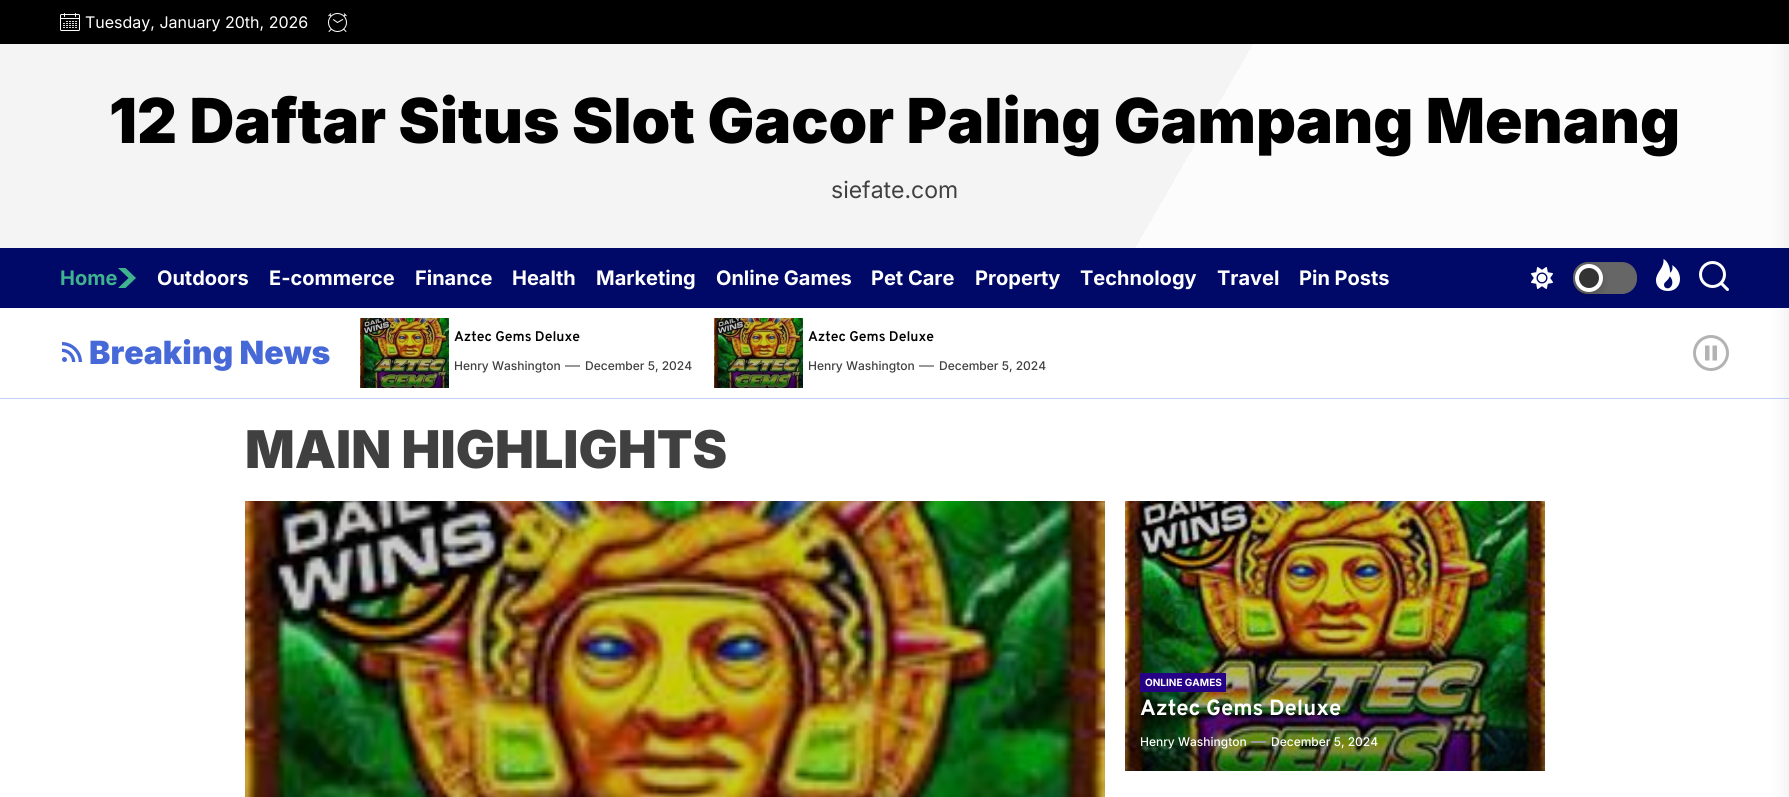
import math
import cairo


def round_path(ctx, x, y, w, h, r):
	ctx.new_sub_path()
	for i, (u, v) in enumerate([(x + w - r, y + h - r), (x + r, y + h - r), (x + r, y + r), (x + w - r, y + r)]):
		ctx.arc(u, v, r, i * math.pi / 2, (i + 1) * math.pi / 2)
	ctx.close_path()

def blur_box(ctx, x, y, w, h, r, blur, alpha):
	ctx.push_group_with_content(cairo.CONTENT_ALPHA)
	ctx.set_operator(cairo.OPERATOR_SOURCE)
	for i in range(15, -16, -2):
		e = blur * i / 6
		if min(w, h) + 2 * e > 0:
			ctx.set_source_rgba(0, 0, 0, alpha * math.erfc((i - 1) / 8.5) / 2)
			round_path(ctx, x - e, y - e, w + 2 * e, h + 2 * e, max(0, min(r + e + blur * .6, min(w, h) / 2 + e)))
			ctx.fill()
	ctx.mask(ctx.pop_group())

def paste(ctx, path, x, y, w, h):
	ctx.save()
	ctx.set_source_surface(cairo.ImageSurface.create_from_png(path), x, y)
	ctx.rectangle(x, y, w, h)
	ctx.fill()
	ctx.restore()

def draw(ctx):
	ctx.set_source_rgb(1, 1, 1)
	ctx.paint()
	gradient = cairo.LinearGradient(1632, 580, 157, -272)
	gradient.add_color_stop_rgba(0.35, 0.988, 0.988, 0.988, 1)
	gradient.add_color_stop_rgba(0.35, 0.957, 0.957, 0.957, 1)
	ctx.set_source(gradient)
	ctx.rectangle(0, 44, 1789, 204)
	ctx.fill()
	ctx.set_source_rgb(0, 0, 0)
	ctx.rectangle(0, 0, 1789, 44)
	ctx.fill()
	paste(ctx, 'media/1.png', 60, 13, 20, 18)
	ctx.select_font_face('Inter')
	ctx.set_font_size(16)
	ctx.set_source_rgb(1, 1, 1)
	ctx.move_to(85, 28)
	ctx.show_text('Tuesday, January 20th, 2026')
	paste(ctx, 'media/2.png', 328, 13, 19, 19)
	ctx.select_font_face('Inter Black')
	ctx.set_font_size(62)
	ctx.set_source_rgb(0, 0, 0)
	ctx.move_to(109, 143)
	ctx.show_text('12 Daftar Situs Slot Gacor Paling Gampang Menang')
	ctx.select_font_face('Inter')
	ctx.set_font_size(23)
	ctx.set_source_rgb(0.251, 0.251, 0.251)
	ctx.move_to(831, 198)
	ctx.show_text('siefate.com')
	ctx.set_source_rgb(0, 0.039, 0.408)
	ctx.rectangle(0, 248, 1789, 60)
	ctx.fill()
	ctx.select_font_face('Inter', cairo.FONT_SLANT_NORMAL, cairo.FONT_WEIGHT_BOLD)
	ctx.set_font_size(20)
	ctx.set_source_rgb(0.247, 0.698, 0.561)
	ctx.move_to(60, 285)
	ctx.show_text('Home')
	ctx.new_path()
	ctx.move_to(128.5, 278)
	ctx.line_to(118, 268)
	ctx.line_to(125.5, 268)
	ctx.line_to(136, 278)
	ctx.line_to(125.5, 288)
	ctx.line_to(118, 288)
	ctx.close_path()
	ctx.fill()
	ctx.set_source_rgb(1, 1, 1)
	for x, y, s in [
		(157, 285, 'Outdoors'),
		(269, 285, 'E-commerce'),
		(415, 285, 'Finance'),
		(512, 285, 'Health'),
		(596, 285, 'Marketing'),
		(716, 285, 'Online Games'),
		(871, 285, 'Pet Care'),
		(975, 285, 'Property'),
		(1080, 285, 'Technology'),
		(1217, 285, 'Travel'),
		(1299, 285, 'Pin Posts'),
	]:
		ctx.move_to(x, y)
		ctx.show_text(s)
	paste(ctx, 'media/3.png', 1531, 267, 22, 22)
	ctx.set_source_rgb(0.4, 0.4, 0.4)
	round_path(ctx, 1573, 262, 64, 32, 15)
	ctx.fill()
	ctx.set_source_rgba(0, 0, 0, 0.05)
	ctx.new_path()
	ctx.move_to(1588, 263)
	ctx.curve_to(1592, 263, 1623, 262, 1628, 264)
	ctx.curve_to(1634, 267, 1637, 273, 1637, 279)
	ctx.curve_to(1637, 259, 1620, 262, 1605, 262)
	ctx.curve_to(1593, 262, 1574, 259, 1573, 276)
	ctx.curve_to(1574, 269, 1580, 263, 1588, 263)
	ctx.close_path()
	ctx.fill()
	ctx.set_source_rgb(0, 0, 0)
	blur_box(ctx, 1575, 268, 28, 28, 14, 4, 0.16)
	ctx.set_source_rgb(0.2, 0.2, 0.2)
	ctx.arc(1589, 278, 12, 0, 2 * math.pi)
	ctx.fill_preserve()
	ctx.set_source_rgb(1, 1, 1)
	ctx.set_line_width(4)
	ctx.stroke()
	paste(ctx, 'media/4.png', 1656, 259, 24, 32)
	paste(ctx, 'media/5.png', 1699, 261, 30, 30)
	ctx.set_source_rgb(0.761, 0.812, 0.973)
	ctx.rectangle(0, 398, 1789, 1)
	ctx.fill()
	ctx.set_source_rgb(0, 0, 0)
	blur_box(ctx, 1789, 0, 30, 797, 0, 10, 0.1)
	paste(ctx, 'media/6.png', 62, 342, 20, 20)
	ctx.select_font_face('Inter Black')
	ctx.set_font_size(32)
	ctx.set_source_rgb(0.278, 0.412, 0.847)
	ctx.move_to(89, 364)
	ctx.show_text('Breaking News')
	paste(ctx, 'media/7.png', 360, 318, 89, 70)
	ctx.select_font_face('Overpass SemiBold')
	ctx.set_font_size(14)
	ctx.set_source_rgb(0, 0, 0)
	ctx.move_to(454, 341)
	ctx.show_text('Aztec Gems Deluxe')
	ctx.select_font_face('Inter Medium')
	ctx.set_font_size(12)
	ctx.set_source_rgb(0.251, 0.251, 0.251)
	ctx.move_to(454, 370)
	ctx.show_text('Henry Washington')
	ctx.set_source_rgb(0.6, 0.6, 0.6)
	ctx.rectangle(565, 365, 15, 2)
	ctx.fill()
	ctx.set_source_rgb(0.251, 0.251, 0.251)
	ctx.move_to(585, 370)
	ctx.show_text('December 5, 2024')
	paste(ctx, 'media/7.png', 714, 318, 89, 70)
	ctx.select_font_face('Overpass SemiBold')
	ctx.set_font_size(14)
	ctx.set_source_rgb(0, 0, 0)
	ctx.move_to(808, 341)
	ctx.show_text('Aztec Gems Deluxe')
	ctx.select_font_face('Inter Medium')
	ctx.set_font_size(12)
	ctx.set_source_rgb(0.251, 0.251, 0.251)
	ctx.move_to(808, 370)
	ctx.show_text('Henry Washington')
	ctx.set_source_rgb(0.6, 0.6, 0.6)
	ctx.rectangle(919, 365, 15, 2)
	ctx.fill()
	ctx.set_source_rgb(0.251, 0.251, 0.251)
	ctx.move_to(939, 370)
	ctx.show_text('December 5, 2024')
	paste(ctx, 'media/8.png', 1693, 335, 36, 36)
	ctx.select_font_face('Inter Black')
	ctx.set_font_size(52)
	ctx.move_to(245, 468)
	ctx.show_text('MAIN HIGHLIGHTS')
	paste(ctx, 'media/9.png', 245, 501, 860, 296)
	paste(ctx, 'media/10.png', 1125, 501, 420, 270)
	ctx.set_source_rgb(0.149, 0, 0.522)
	ctx.rectangle(1140, 673, 86, 19)
	ctx.fill()
	ctx.select_font_face('Inter', cairo.FONT_SLANT_NORMAL, cairo.FONT_WEIGHT_BOLD)
	ctx.set_font_size(10)
	ctx.set_source_rgb(1, 1, 1)
	ctx.move_to(1145, 686)
	ctx.show_text('ONLINE GAMES')
	ctx.select_font_face('Overpass', cairo.FONT_SLANT_NORMAL, cairo.FONT_WEIGHT_BOLD)
	ctx.set_font_size(22)
	ctx.move_to(1140, 715)
	ctx.show_text('Aztec Gems Deluxe')
	ctx.select_font_face('Inter Medium')
	ctx.set_font_size(12)
	ctx.move_to(1140, 746)
	ctx.show_text('Henry Washington')
	ctx.set_source_rgb(0.6, 0.6, 0.6)
	ctx.rectangle(1251, 741, 15, 2)
	ctx.fill()
	ctx.set_source_rgb(1, 1, 1)
	ctx.move_to(1271, 746)
	ctx.show_text('December 5, 2024')


surface = cairo.ImageSurface(cairo.FORMAT_RGB24, 1789, 797)
ctx = cairo.Context(surface)
options = cairo.FontOptions()
options.set_hint_metrics(cairo.HINT_METRICS_OFF)
options.set_hint_style(cairo.HINT_STYLE_NONE)
ctx.set_font_options(options)
ctx.set_miter_limit(4)
draw(ctx)
surface.write_to_png('image.png')
